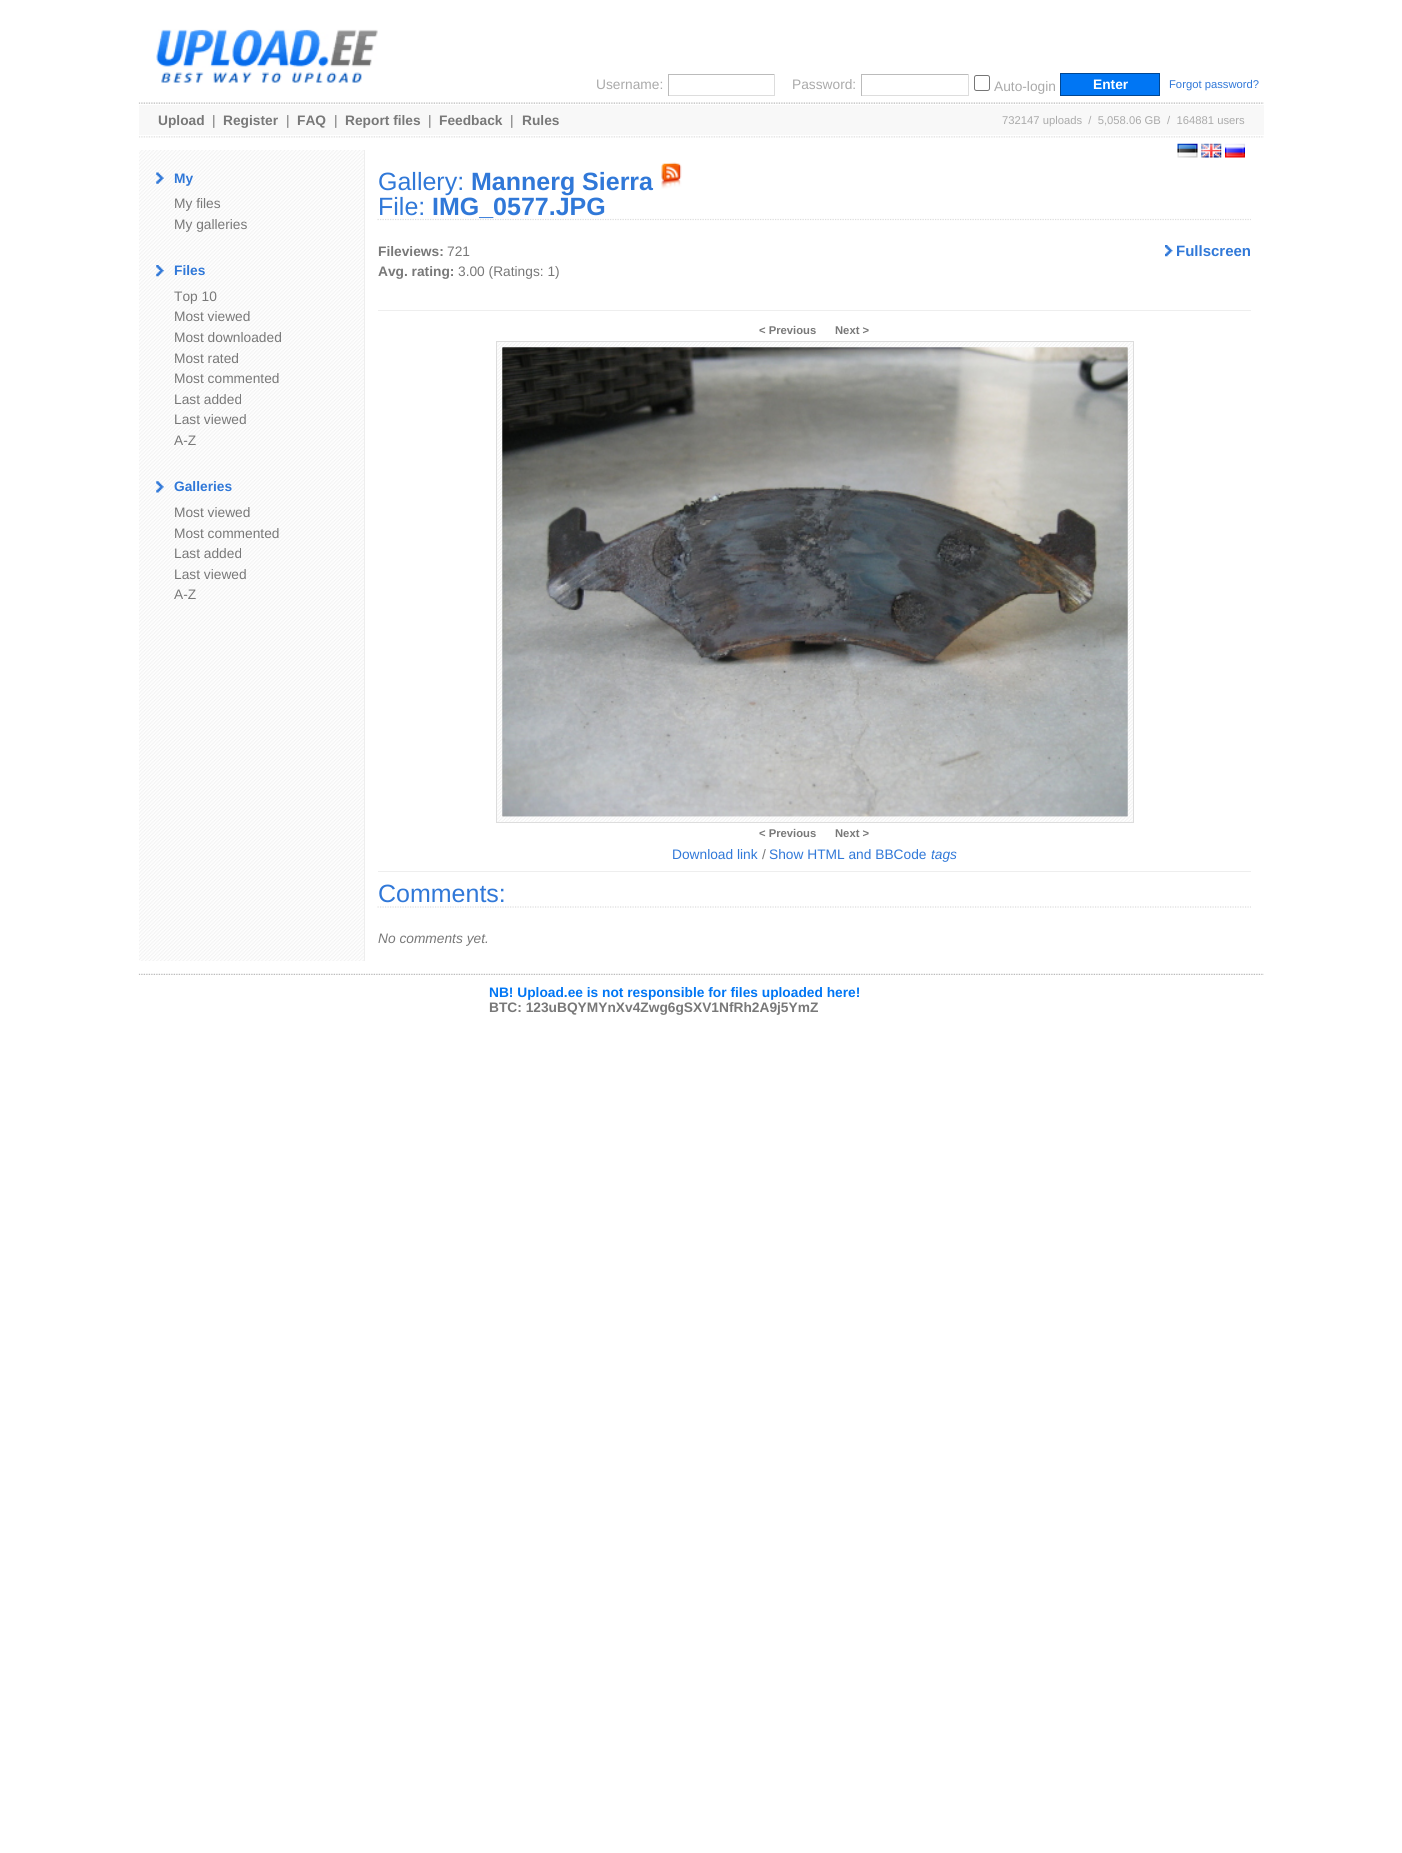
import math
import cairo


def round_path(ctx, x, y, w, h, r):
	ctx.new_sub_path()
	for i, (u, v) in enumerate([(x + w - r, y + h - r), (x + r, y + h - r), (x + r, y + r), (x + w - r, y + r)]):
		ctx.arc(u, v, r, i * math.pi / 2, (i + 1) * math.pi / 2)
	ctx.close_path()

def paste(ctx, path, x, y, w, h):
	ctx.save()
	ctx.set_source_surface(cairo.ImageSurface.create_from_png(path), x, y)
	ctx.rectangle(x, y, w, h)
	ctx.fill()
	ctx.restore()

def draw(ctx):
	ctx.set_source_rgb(1, 1, 1)
	ctx.paint()
	paste(ctx, 'media/1.png', 156, 29, 222, 54)
	ctx.select_font_face('Liberation Sans')
	ctx.set_font_size(13.75)
	ctx.set_source_rgb(0.667, 0.667, 0.667)
	ctx.move_to(596, 89)
	ctx.show_text('Username:')
	ctx.set_source_rgb(0.733, 0.733, 0.733)
	ctx.rectangle(668, 74, 107, 1)
	ctx.fill()
	ctx.set_source_rgb(0.867, 0.867, 0.867)
	ctx.rectangle(774, 74, 1, 22)
	ctx.rectangle(668, 95, 107, 1)
	ctx.fill()
	ctx.set_source_rgb(0.733, 0.733, 0.733)
	ctx.rectangle(668, 74, 1, 22)
	ctx.fill()
	ctx.set_source_rgb(0.667, 0.667, 0.667)
	ctx.move_to(792, 89)
	ctx.show_text('Password:')
	ctx.set_source_rgb(0.733, 0.733, 0.733)
	ctx.rectangle(861, 74, 108, 1)
	ctx.fill()
	ctx.set_source_rgb(0.867, 0.867, 0.867)
	ctx.rectangle(968, 74, 1, 22)
	ctx.rectangle(861, 95, 108, 1)
	ctx.fill()
	ctx.set_source_rgb(0.733, 0.733, 0.733)
	ctx.rectangle(861, 74, 1, 22)
	ctx.fill()
	round_path(ctx, 974.5, 75.5, 15, 15, 2)
	ctx.set_source_rgb(0.463, 0.463, 0.463)
	ctx.set_line_width(1)
	ctx.stroke()
	ctx.set_source_rgb(0.667, 0.667, 0.667)
	ctx.move_to(994, 91)
	ctx.show_text('Auto-login')
	ctx.set_source_rgb(0, 0.463, 0.957)
	ctx.rectangle(1060.5, 73.5, 99, 22)
	ctx.fill_preserve()
	ctx.set_source_rgb(0, 0.275, 0.573)
	ctx.stroke()
	ctx.select_font_face('Liberation Sans', cairo.FONT_SLANT_NORMAL, cairo.FONT_WEIGHT_BOLD)
	ctx.set_source_rgb(1, 1, 1)
	ctx.move_to(1093, 89)
	ctx.show_text('Enter')
	ctx.select_font_face('Liberation Sans')
	ctx.set_font_size(11.25)
	ctx.set_source_rgb(0.188, 0.471, 0.847)
	ctx.move_to(1169, 88)
	ctx.show_text('Forgot password?')
	paste(ctx, 'media/2.png', 138, 102, 1126, 2)
	ctx.set_source_rgb(0.969, 0.969, 0.969)
	ctx.rectangle(139, 105, 1125, 30)
	ctx.fill()
	ctx.select_font_face('Liberation Sans', cairo.FONT_SLANT_NORMAL, cairo.FONT_WEIGHT_BOLD)
	ctx.set_font_size(13.75)
	ctx.set_source_rgb(0.471, 0.471, 0.471)
	ctx.move_to(158, 125)
	ctx.show_text('Upload')
	ctx.select_font_face('Liberation Sans')
	ctx.move_to(212, 125)
	ctx.show_text('|')
	ctx.select_font_face('Liberation Sans', cairo.FONT_SLANT_NORMAL, cairo.FONT_WEIGHT_BOLD)
	ctx.move_to(223, 125)
	ctx.show_text('Register')
	ctx.select_font_face('Liberation Sans')
	ctx.move_to(286, 125)
	ctx.show_text('|')
	ctx.select_font_face('Liberation Sans', cairo.FONT_SLANT_NORMAL, cairo.FONT_WEIGHT_BOLD)
	ctx.move_to(297, 125)
	ctx.show_text('FAQ')
	ctx.select_font_face('Liberation Sans')
	ctx.move_to(334, 125)
	ctx.show_text('|')
	ctx.select_font_face('Liberation Sans', cairo.FONT_SLANT_NORMAL, cairo.FONT_WEIGHT_BOLD)
	ctx.move_to(345, 125)
	ctx.show_text('Report files')
	ctx.select_font_face('Liberation Sans')
	ctx.move_to(428, 125)
	ctx.show_text('|')
	ctx.select_font_face('Liberation Sans', cairo.FONT_SLANT_NORMAL, cairo.FONT_WEIGHT_BOLD)
	ctx.move_to(439, 125)
	ctx.show_text('Feedback')
	ctx.select_font_face('Liberation Sans')
	ctx.move_to(510, 125)
	ctx.show_text('|')
	ctx.select_font_face('Liberation Sans', cairo.FONT_SLANT_NORMAL, cairo.FONT_WEIGHT_BOLD)
	ctx.move_to(522, 125)
	ctx.show_text('Rules')
	ctx.select_font_face('Liberation Sans')
	ctx.set_font_size(11.25)
	ctx.set_source_rgb(0.667, 0.667, 0.667)
	ctx.move_to(1002, 124)
	ctx.show_text('732147 uploads  /  5,058.06 GB  /  164881 users')
	paste(ctx, 'media/3.png', 1177, 143, 21, 15)
	paste(ctx, 'media/4.png', 1201, 143, 21, 15)
	paste(ctx, 'media/5.png', 1225, 143, 20, 15)
	paste(ctx, 'media/6.png', 139, 136, 1125, 2)
	paste(ctx, 'media/7.png', 139, 150, 225, 811)
	ctx.set_source_rgb(0.933, 0.933, 0.933)
	ctx.rectangle(364, 150, 1, 811)
	ctx.fill()
	paste(ctx, 'media/8.png', 156, 172, 8, 12)
	ctx.select_font_face('Liberation Sans', cairo.FONT_SLANT_NORMAL, cairo.FONT_WEIGHT_BOLD)
	ctx.set_font_size(13.75)
	ctx.set_source_rgb(0.188, 0.471, 0.847)
	ctx.move_to(174, 183)
	ctx.show_text('My')
	ctx.select_font_face('Liberation Sans')
	ctx.set_source_rgb(0.471, 0.471, 0.471)
	ctx.move_to(174, 208)
	ctx.show_text('My files')
	ctx.move_to(174, 229)
	ctx.show_text('My galleries')
	paste(ctx, 'media/9.png', 156, 265, 8, 12)
	ctx.select_font_face('Liberation Sans', cairo.FONT_SLANT_NORMAL, cairo.FONT_WEIGHT_BOLD)
	ctx.set_source_rgb(0.188, 0.471, 0.847)
	ctx.move_to(174, 275)
	ctx.show_text('Files')
	ctx.select_font_face('Liberation Sans')
	ctx.set_source_rgb(0.471, 0.471, 0.471)
	for x, y, s in [
		(174, 301, 'Top 10'),
		(174, 321, 'Most viewed'),
		(174, 342, 'Most downloaded'),
		(174, 363, 'Most rated'),
		(174, 383, 'Most commented'),
		(174, 404, 'Last added'),
		(174, 424, 'Last viewed'),
		(174, 445, 'A-Z'),
	]:
		ctx.move_to(x, y)
		ctx.show_text(s)
	paste(ctx, 'media/10.png', 156, 481, 8, 12)
	ctx.select_font_face('Liberation Sans', cairo.FONT_SLANT_NORMAL, cairo.FONT_WEIGHT_BOLD)
	ctx.set_source_rgb(0.188, 0.471, 0.847)
	ctx.move_to(174, 491)
	ctx.show_text('Galleries')
	ctx.select_font_face('Liberation Sans')
	ctx.set_source_rgb(0.471, 0.471, 0.471)
	for x, y, s in [
		(174, 517, 'Most viewed'),
		(174, 538, 'Most commented'),
		(174, 558, 'Last added'),
		(174, 579, 'Last viewed'),
		(174, 599, 'A-Z'),
	]:
		ctx.move_to(x, y)
		ctx.show_text(s)
	ctx.new_path()
	ctx.move_to(377.5, 219.5)
	ctx.line_to(1251, 219.5)
	ctx.set_source_rgb(0.867, 0.867, 0.867)
	ctx.set_line_width(1.2)
	ctx.set_dash([1.25, 1.25])
	ctx.stroke()
	ctx.set_font_size(25)
	ctx.set_source_rgb(0.188, 0.471, 0.847)
	ctx.move_to(378, 190)
	ctx.show_text('Gallery:')
	ctx.select_font_face('Liberation Sans', cairo.FONT_SLANT_NORMAL, cairo.FONT_WEIGHT_BOLD)
	ctx.move_to(471, 190)
	ctx.show_text('Mannerg Sierra')
	paste(ctx, 'media/11.png', 661, 162, 21, 27)
	ctx.select_font_face('Liberation Sans')
	ctx.move_to(378, 215)
	ctx.show_text('File:')
	ctx.select_font_face('Liberation Sans', cairo.FONT_SLANT_NORMAL, cairo.FONT_WEIGHT_BOLD)
	ctx.move_to(432, 215)
	ctx.show_text('IMG_0577.JPG')
	ctx.set_font_size(13.75)
	ctx.set_source_rgb(0.471, 0.471, 0.471)
	ctx.move_to(378, 256)
	ctx.show_text('Fileviews:')
	ctx.select_font_face('Liberation Sans')
	ctx.move_to(447, 256)
	ctx.show_text('721')
	paste(ctx, 'media/12.png', 1165, 245, 8, 12)
	ctx.select_font_face('Liberation Sans', cairo.FONT_SLANT_NORMAL, cairo.FONT_WEIGHT_BOLD)
	ctx.set_font_size(15)
	ctx.set_source_rgb(0.188, 0.471, 0.847)
	ctx.move_to(1176, 256)
	ctx.show_text('Fullscreen')
	ctx.set_font_size(13.75)
	ctx.set_source_rgb(0.471, 0.471, 0.471)
	ctx.move_to(378, 276)
	ctx.show_text('Avg. rating:')
	ctx.select_font_face('Liberation Sans')
	ctx.move_to(458, 276)
	ctx.show_text('3.00 (Ratings: 1)')
	ctx.set_source_rgb(0.933, 0.933, 0.933)
	ctx.rectangle(378, 310, 873, 1)
	ctx.fill()
	ctx.select_font_face('Liberation Sans', cairo.FONT_SLANT_NORMAL, cairo.FONT_WEIGHT_BOLD)
	ctx.set_font_size(11.25)
	ctx.set_source_rgb(0.471, 0.471, 0.471)
	ctx.move_to(759, 334)
	ctx.show_text('< Previous')
	ctx.move_to(835, 334)
	ctx.show_text('Next >')
	paste(ctx, 'media/13.png', 497, 342, 636, 480)
	ctx.rectangle(496.5, 341.5, 637, 481)
	ctx.set_source_rgb(0.867, 0.867, 0.867)
	ctx.set_line_width(1)
	ctx.set_dash([])
	ctx.stroke()
	paste(ctx, 'media/14.png', 502, 347, 626, 470)
	ctx.set_source_rgb(0.471, 0.471, 0.471)
	ctx.move_to(759, 837)
	ctx.show_text('< Previous')
	ctx.move_to(835, 837)
	ctx.show_text('Next >')
	ctx.select_font_face('Liberation Sans')
	ctx.set_font_size(13.75)
	ctx.set_source_rgb(0.188, 0.471, 0.847)
	ctx.move_to(672, 859)
	ctx.show_text('Download link')
	ctx.set_source_rgb(0.471, 0.471, 0.471)
	ctx.move_to(762, 859)
	ctx.show_text('/')
	ctx.set_source_rgb(0.188, 0.471, 0.847)
	ctx.move_to(769, 859)
	ctx.show_text('Show HTML and BBCode')
	ctx.select_font_face('Liberation Sans', cairo.FONT_SLANT_ITALIC)
	ctx.move_to(931, 859)
	ctx.show_text('tags')
	ctx.set_source_rgb(0.933, 0.933, 0.933)
	ctx.rectangle(378, 871, 873, 1)
	ctx.fill()
	ctx.new_path()
	ctx.move_to(377.5, 907)
	ctx.line_to(1251, 907)
	ctx.set_source_rgb(0.867, 0.867, 0.867)
	ctx.set_line_width(1.2)
	ctx.set_dash([1.25, 1.25])
	ctx.stroke()
	ctx.select_font_face('Liberation Sans')
	ctx.set_font_size(25)
	ctx.set_source_rgb(0.188, 0.471, 0.847)
	ctx.move_to(378, 902)
	ctx.show_text('Comments:')
	ctx.select_font_face('Liberation Sans', cairo.FONT_SLANT_ITALIC)
	ctx.set_font_size(13.75)
	ctx.set_source_rgb(0.471, 0.471, 0.471)
	ctx.move_to(378, 943)
	ctx.show_text('No comments yet.')
	paste(ctx, 'media/15.png', 138, 973, 1126, 2)
	ctx.select_font_face('Liberation Sans', cairo.FONT_SLANT_NORMAL, cairo.FONT_WEIGHT_BOLD)
	ctx.set_source_rgb(0, 0.463, 0.957)
	ctx.move_to(489, 997)
	ctx.show_text('NB! Upload.ee is not responsible for files uploaded here!')
	ctx.set_source_rgb(0.471, 0.471, 0.471)
	ctx.move_to(489, 1012)
	ctx.show_text('BTC: 123uBQYMYnXv4Zwg6gSXV1NfRh2A9j5YmZ')


surface = cairo.ImageSurface(cairo.FORMAT_RGB24, 1402, 1853)
ctx = cairo.Context(surface)
options = cairo.FontOptions()
options.set_hint_metrics(cairo.HINT_METRICS_OFF)
options.set_hint_style(cairo.HINT_STYLE_NONE)
ctx.set_font_options(options)
ctx.set_miter_limit(4)
draw(ctx)
surface.write_to_png('image.png')
